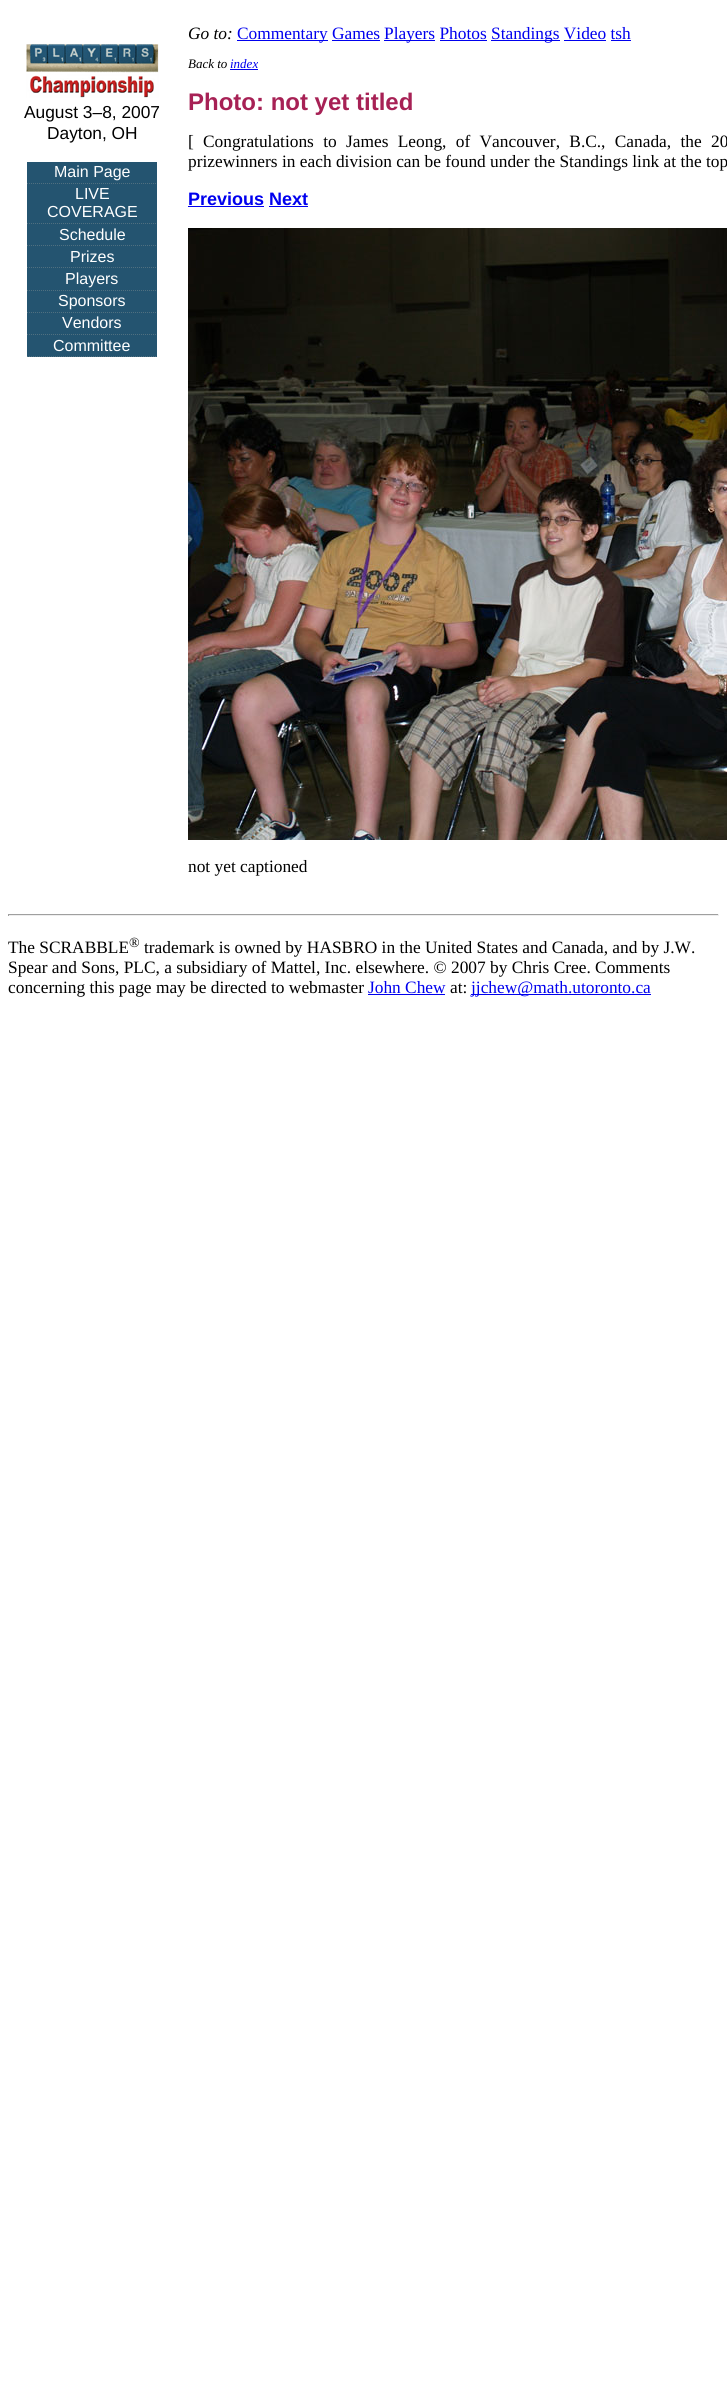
import math
import cairo


def write_spaced(ctx, x, y, s, letter, word):
	ctx.move_to(x, y)
	for ch in s:
		ctx.show_text(ch)
		ctx.rel_move_to(letter + word * (ch == ' '), 0)

def paste(ctx, path, x, y, w, h):
	ctx.save()
	ctx.set_source_surface(cairo.ImageSurface.create_from_png(path), x, y)
	ctx.rectangle(x, y, w, h)
	ctx.fill()
	ctx.restore()

def draw(ctx):
	ctx.set_source_rgb(1, 1, 1)
	ctx.paint()
	paste(ctx, 'media/1.png', 26, 43, 133, 55)
	ctx.select_font_face('Liberation Sans')
	ctx.set_font_size(17.35)
	ctx.set_source_rgb(0, 0, 0)
	ctx.move_to(24, 118)
	ctx.show_text('August 3–8, 2007')
	ctx.move_to(47, 139)
	ctx.show_text('Dayton, OH')
	ctx.set_source_rgb(0.141, 0.329, 0.439)
	ctx.rectangle(27, 162, 130, 195)
	ctx.fill()
	ctx.new_path()
	ctx.move_to(27, 183.5)
	ctx.line_to(157, 183.5)
	ctx.set_source_rgb(0.314, 0.439, 0.502)
	ctx.set_line_width(1)
	ctx.set_dash([1, 1])
	ctx.stroke()
	ctx.set_font_size(16)
	ctx.set_source_rgb(1, 1, 1)
	ctx.move_to(54, 177)
	ctx.show_text('Main Page')
	ctx.new_path()
	ctx.move_to(27, 223.5)
	ctx.line_to(157, 223.5)
	ctx.set_source_rgb(0.314, 0.439, 0.502)
	ctx.stroke()
	ctx.set_source_rgb(1, 1, 1)
	ctx.move_to(75, 199)
	ctx.show_text('LIVE')
	ctx.move_to(47, 217)
	ctx.show_text('COVERAGE')
	ctx.new_path()
	ctx.move_to(27, 245.5)
	ctx.line_to(157, 245.5)
	ctx.set_source_rgb(0.314, 0.439, 0.502)
	ctx.stroke()
	ctx.set_source_rgb(1, 1, 1)
	ctx.move_to(59, 240)
	ctx.show_text('Schedule')
	ctx.new_path()
	ctx.move_to(27, 267.5)
	ctx.line_to(157, 267.5)
	ctx.set_source_rgb(0.314, 0.439, 0.502)
	ctx.stroke()
	ctx.set_source_rgb(1, 1, 1)
	ctx.move_to(70, 262)
	ctx.show_text('Prizes')
	ctx.new_path()
	ctx.move_to(27, 290.5)
	ctx.line_to(157, 290.5)
	ctx.set_source_rgb(0.314, 0.439, 0.502)
	ctx.stroke()
	ctx.set_source_rgb(1, 1, 1)
	ctx.move_to(65, 284)
	ctx.show_text('Players')
	ctx.new_path()
	ctx.move_to(27, 312.5)
	ctx.line_to(157, 312.5)
	ctx.set_source_rgb(0.314, 0.439, 0.502)
	ctx.stroke()
	ctx.set_source_rgb(1, 1, 1)
	ctx.move_to(58, 306)
	ctx.show_text('Sponsors')
	ctx.new_path()
	ctx.move_to(27, 334.5)
	ctx.line_to(157, 334.5)
	ctx.set_source_rgb(0.314, 0.439, 0.502)
	ctx.stroke()
	ctx.set_source_rgb(1, 1, 1)
	ctx.move_to(62, 328)
	ctx.show_text('Vendors')
	ctx.new_path()
	ctx.move_to(27, 356.5)
	ctx.line_to(157, 356.5)
	ctx.set_source_rgb(0.314, 0.439, 0.502)
	ctx.stroke()
	ctx.set_source_rgb(1, 1, 1)
	ctx.move_to(53, 351)
	ctx.show_text('Committee')
	ctx.select_font_face('Liberation Serif', cairo.FONT_SLANT_ITALIC)
	ctx.set_font_size(17.35)
	ctx.set_source_rgb(0, 0, 0)
	ctx.move_to(188, 39)
	ctx.show_text('Go to:')
	ctx.set_source_rgb(0, 0, 0.933)
	ctx.rectangle(237, 40, 91, 1)
	ctx.fill()
	ctx.select_font_face('Liberation Serif')
	ctx.move_to(237, 39)
	ctx.show_text('Commentary Games')
	ctx.rectangle(384, 40, 51, 1)
	ctx.fill()
	ctx.move_to(384, 39)
	ctx.show_text('Players Photos')
	ctx.rectangle(491, 40, 69, 1)
	ctx.fill()
	ctx.move_to(491, 39)
	ctx.show_text('Standings Video tsh')
	ctx.rectangle(332, 40, 48, 1)
	ctx.rectangle(440, 40, 47, 1)
	ctx.rectangle(564, 40, 42, 1)
	ctx.rectangle(611, 40, 20, 1)
	ctx.fill()
	ctx.select_font_face('Liberation Serif', cairo.FONT_SLANT_ITALIC)
	ctx.set_font_size(13)
	ctx.set_source_rgb(0, 0, 0)
	ctx.move_to(188, 68)
	ctx.show_text('Back to')
	ctx.set_source_rgb(0, 0, 0.933)
	ctx.move_to(230, 68)
	ctx.show_text('index')
	ctx.rectangle(230, 69, 28, 1)
	ctx.fill()
	ctx.select_font_face('Liberation Sans', cairo.FONT_SLANT_NORMAL, cairo.FONT_WEIGHT_BOLD)
	ctx.set_font_size(24)
	ctx.set_source_rgb(0.655, 0.129, 0.333)
	ctx.move_to(188, 110)
	ctx.show_text('Photo: not yet titled')
	ctx.select_font_face('Liberation Serif')
	ctx.set_font_size(17.35)
	ctx.set_source_rgb(0, 0, 0)
	ctx.move_to(188, 147)
	ctx.show_text('[')
	write_spaced(ctx, 203, 147, 'Congratulations to James Leong, of Vancouver, B.C., Canada, the 20', 0, 5)
	ctx.move_to(188, 167)
	ctx.show_text('prizewinners in each division can be found under the Standings link at the top')
	ctx.select_font_face('Liberation Sans', cairo.FONT_SLANT_NORMAL, cairo.FONT_WEIGHT_BOLD)
	ctx.set_font_size(18)
	ctx.set_source_rgb(0, 0, 0.933)
	ctx.move_to(188, 205)
	ctx.show_text('Previous Next')
	ctx.rectangle(188, 206, 76, 1)
	ctx.fill()
	ctx.rectangle(269, 206, 39, 1)
	ctx.fill()
	paste(ctx, 'media/2.png', 188, 228, 539, 612)
	ctx.select_font_face('Liberation Serif')
	ctx.set_font_size(17.35)
	ctx.set_source_rgb(0, 0, 0)
	ctx.move_to(188, 872)
	ctx.show_text('not yet captioned')
	ctx.set_source_rgb(0.624, 0.624, 0.624)
	ctx.rectangle(8, 914, 711, 1)
	ctx.fill()
	ctx.set_source_rgb(0.933, 0.933, 0.933)
	ctx.rectangle(718, 914, 1, 2)
	ctx.rectangle(8, 915, 711, 1)
	ctx.fill()
	ctx.set_source_rgb(0.624, 0.624, 0.624)
	ctx.rectangle(8, 914, 1, 2)
	ctx.fill()
	ctx.set_source_rgb(0, 0, 0)
	ctx.move_to(8, 953)
	ctx.show_text('The SCRABBLE')
	ctx.set_font_size(14)
	ctx.move_to(129, 947)
	ctx.show_text('®')
	ctx.set_font_size(17.35)
	for x, y, s in [
		(144, 953, 'trademark is owned by HASBRO in the United States and Canada, and by J.W.'),
		(8, 973, 'Spear and Sons, PLC, a subsidiary of Mattel, Inc. elsewhere. © 2007 by Chris Cree. Comments'),
		(8, 993, 'concerning this page may be directed to webmaster'),
	]:
		ctx.move_to(x, y)
		ctx.show_text(s)
	ctx.set_source_rgb(0, 0, 0.933)
	ctx.move_to(368, 993)
	ctx.show_text('John Chew')
	ctx.rectangle(368, 994, 77, 1)
	ctx.fill()
	ctx.set_source_rgb(0, 0, 0)
	ctx.move_to(450, 993)
	ctx.show_text('at:')
	ctx.set_source_rgb(0, 0, 0.933)
	ctx.rectangle(471, 994, 180, 1)
	ctx.fill()
	ctx.move_to(471, 993)
	ctx.show_text('jjchew@math.utoronto.ca')


surface = cairo.ImageSurface(cairo.FORMAT_RGB24, 727, 2384)
ctx = cairo.Context(surface)
options = cairo.FontOptions()
options.set_hint_metrics(cairo.HINT_METRICS_OFF)
options.set_hint_style(cairo.HINT_STYLE_NONE)
ctx.set_font_options(options)
ctx.set_miter_limit(4)
draw(ctx)
surface.write_to_png('image.png')
